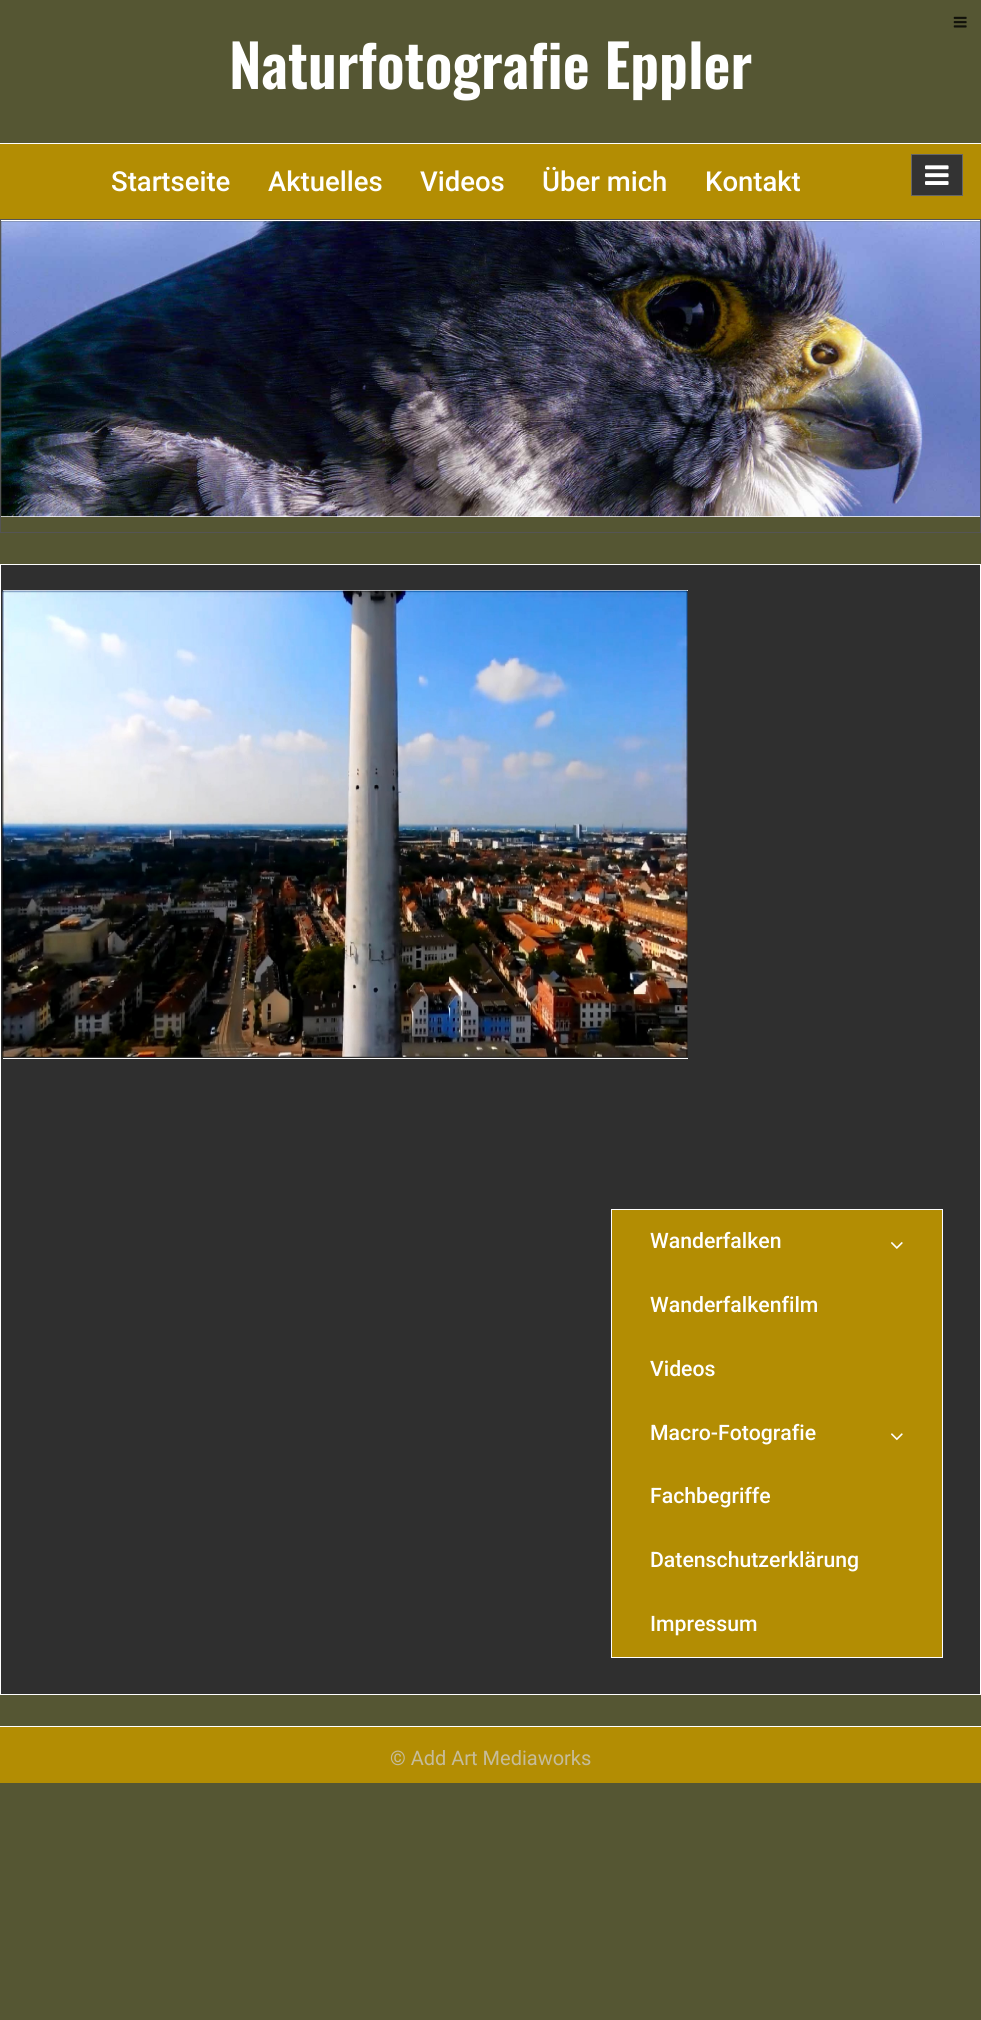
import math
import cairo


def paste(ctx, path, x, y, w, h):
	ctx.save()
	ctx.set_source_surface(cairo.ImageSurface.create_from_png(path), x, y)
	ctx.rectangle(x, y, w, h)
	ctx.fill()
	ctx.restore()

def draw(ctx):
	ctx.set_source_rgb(0.333, 0.337, 0.2)
	ctx.paint()
	paste(ctx, 'media/1.png', 953, 16, 14, 12)
	ctx.set_source_rgb(1, 1, 1)
	ctx.rectangle(0, 143, 981, 1)
	ctx.fill()
	ctx.select_font_face('Oswald SemiBold')
	ctx.set_font_size(58.75)
	ctx.move_to(229, 89)
	ctx.show_text('Naturfotografie Eppler')
	ctx.set_source_rgb(0.702, 0.553, 0.012)
	ctx.rectangle(0, 144, 981, 75)
	ctx.fill()
	ctx.select_font_face('Roboto Medium')
	ctx.set_font_size(27.5)
	ctx.set_source_rgb(1, 1, 1)
	for x, y, s in [
		(111, 191, 'Startseite'),
		(268, 191, 'Aktuelles'),
		(420, 191, 'Videos'),
		(542, 191, 'Über mich'),
		(705, 191, 'Kontakt'),
	]:
		ctx.move_to(x, y)
		ctx.show_text(s)
	ctx.set_source_rgb(0.2, 0.2, 0.2)
	ctx.rectangle(911.5, 154.5, 51, 41)
	ctx.fill_preserve()
	ctx.set_source_rgb(0.4, 0.4, 0.4)
	ctx.set_line_width(1)
	ctx.stroke()
	paste(ctx, 'media/2.png', 925, 165, 24, 20)
	ctx.rectangle(0.5, 219.5, 980, 313)
	ctx.set_source_rgb(0.333, 0.333, 0.333)
	ctx.stroke()
	ctx.set_source_rgb(1, 1, 1)
	ctx.rectangle(1, 220, 979, 1)
	ctx.fill()
	ctx.rectangle(1, 516, 979, 1)
	ctx.fill()
	paste(ctx, 'media/3.png', 1, 221, 979, 296)
	ctx.set_source_rgb(0.184, 0.184, 0.184)
	ctx.rectangle(0.5, 564.5, 980, 1130)
	ctx.fill_preserve()
	ctx.set_source_rgb(1, 1, 1)
	ctx.stroke()
	ctx.rectangle(3, 590, 685, 1)
	ctx.fill()
	ctx.rectangle(3, 1058, 685, 1)
	ctx.fill()
	paste(ctx, 'media/4.png', 2, 590, 686, 467)
	ctx.set_source_rgb(0.702, 0.553, 0.012)
	ctx.rectangle(611.5, 1209.5, 331, 448)
	ctx.fill_preserve()
	ctx.set_source_rgb(1, 1, 1)
	ctx.stroke()
	ctx.set_font_size(21.25)
	ctx.move_to(650, 1248)
	ctx.show_text('Wanderfalken')
	paste(ctx, 'media/5.png', 891, 1242, 12, 7)
	for x, y, s in [
		(650, 1312, 'Wanderfalkenfilm'),
		(650, 1376, 'Videos'),
		(650, 1440, 'Macro-Fotografie'),
	]:
		ctx.move_to(x, y)
		ctx.show_text(s)
	paste(ctx, 'media/6.png', 891, 1433, 12, 8)
	for x, y, s in [
		(650, 1503, 'Fachbegriffe'),
		(650, 1567, 'Datenschutzerklärung'),
		(650, 1631, 'Impressum'),
	]:
		ctx.move_to(x, y)
		ctx.show_text(s)
	ctx.set_source_rgb(0.702, 0.553, 0.012)
	ctx.rectangle(0, 1727, 981, 56)
	ctx.fill()
	ctx.set_source_rgb(1, 1, 1)
	ctx.rectangle(0, 1726, 981, 1)
	ctx.fill()
	ctx.select_font_face('Roboto')
	ctx.set_font_size(20)
	ctx.set_source_rgb(0.776, 0.737, 0.604)
	ctx.move_to(390, 1765)
	ctx.show_text('© Add Art Mediaworks')


surface = cairo.ImageSurface(cairo.FORMAT_RGB24, 981, 2020)
ctx = cairo.Context(surface)
options = cairo.FontOptions()
options.set_hint_metrics(cairo.HINT_METRICS_OFF)
options.set_hint_style(cairo.HINT_STYLE_NONE)
ctx.set_font_options(options)
ctx.set_miter_limit(4)
draw(ctx)
surface.write_to_png('image.png')
